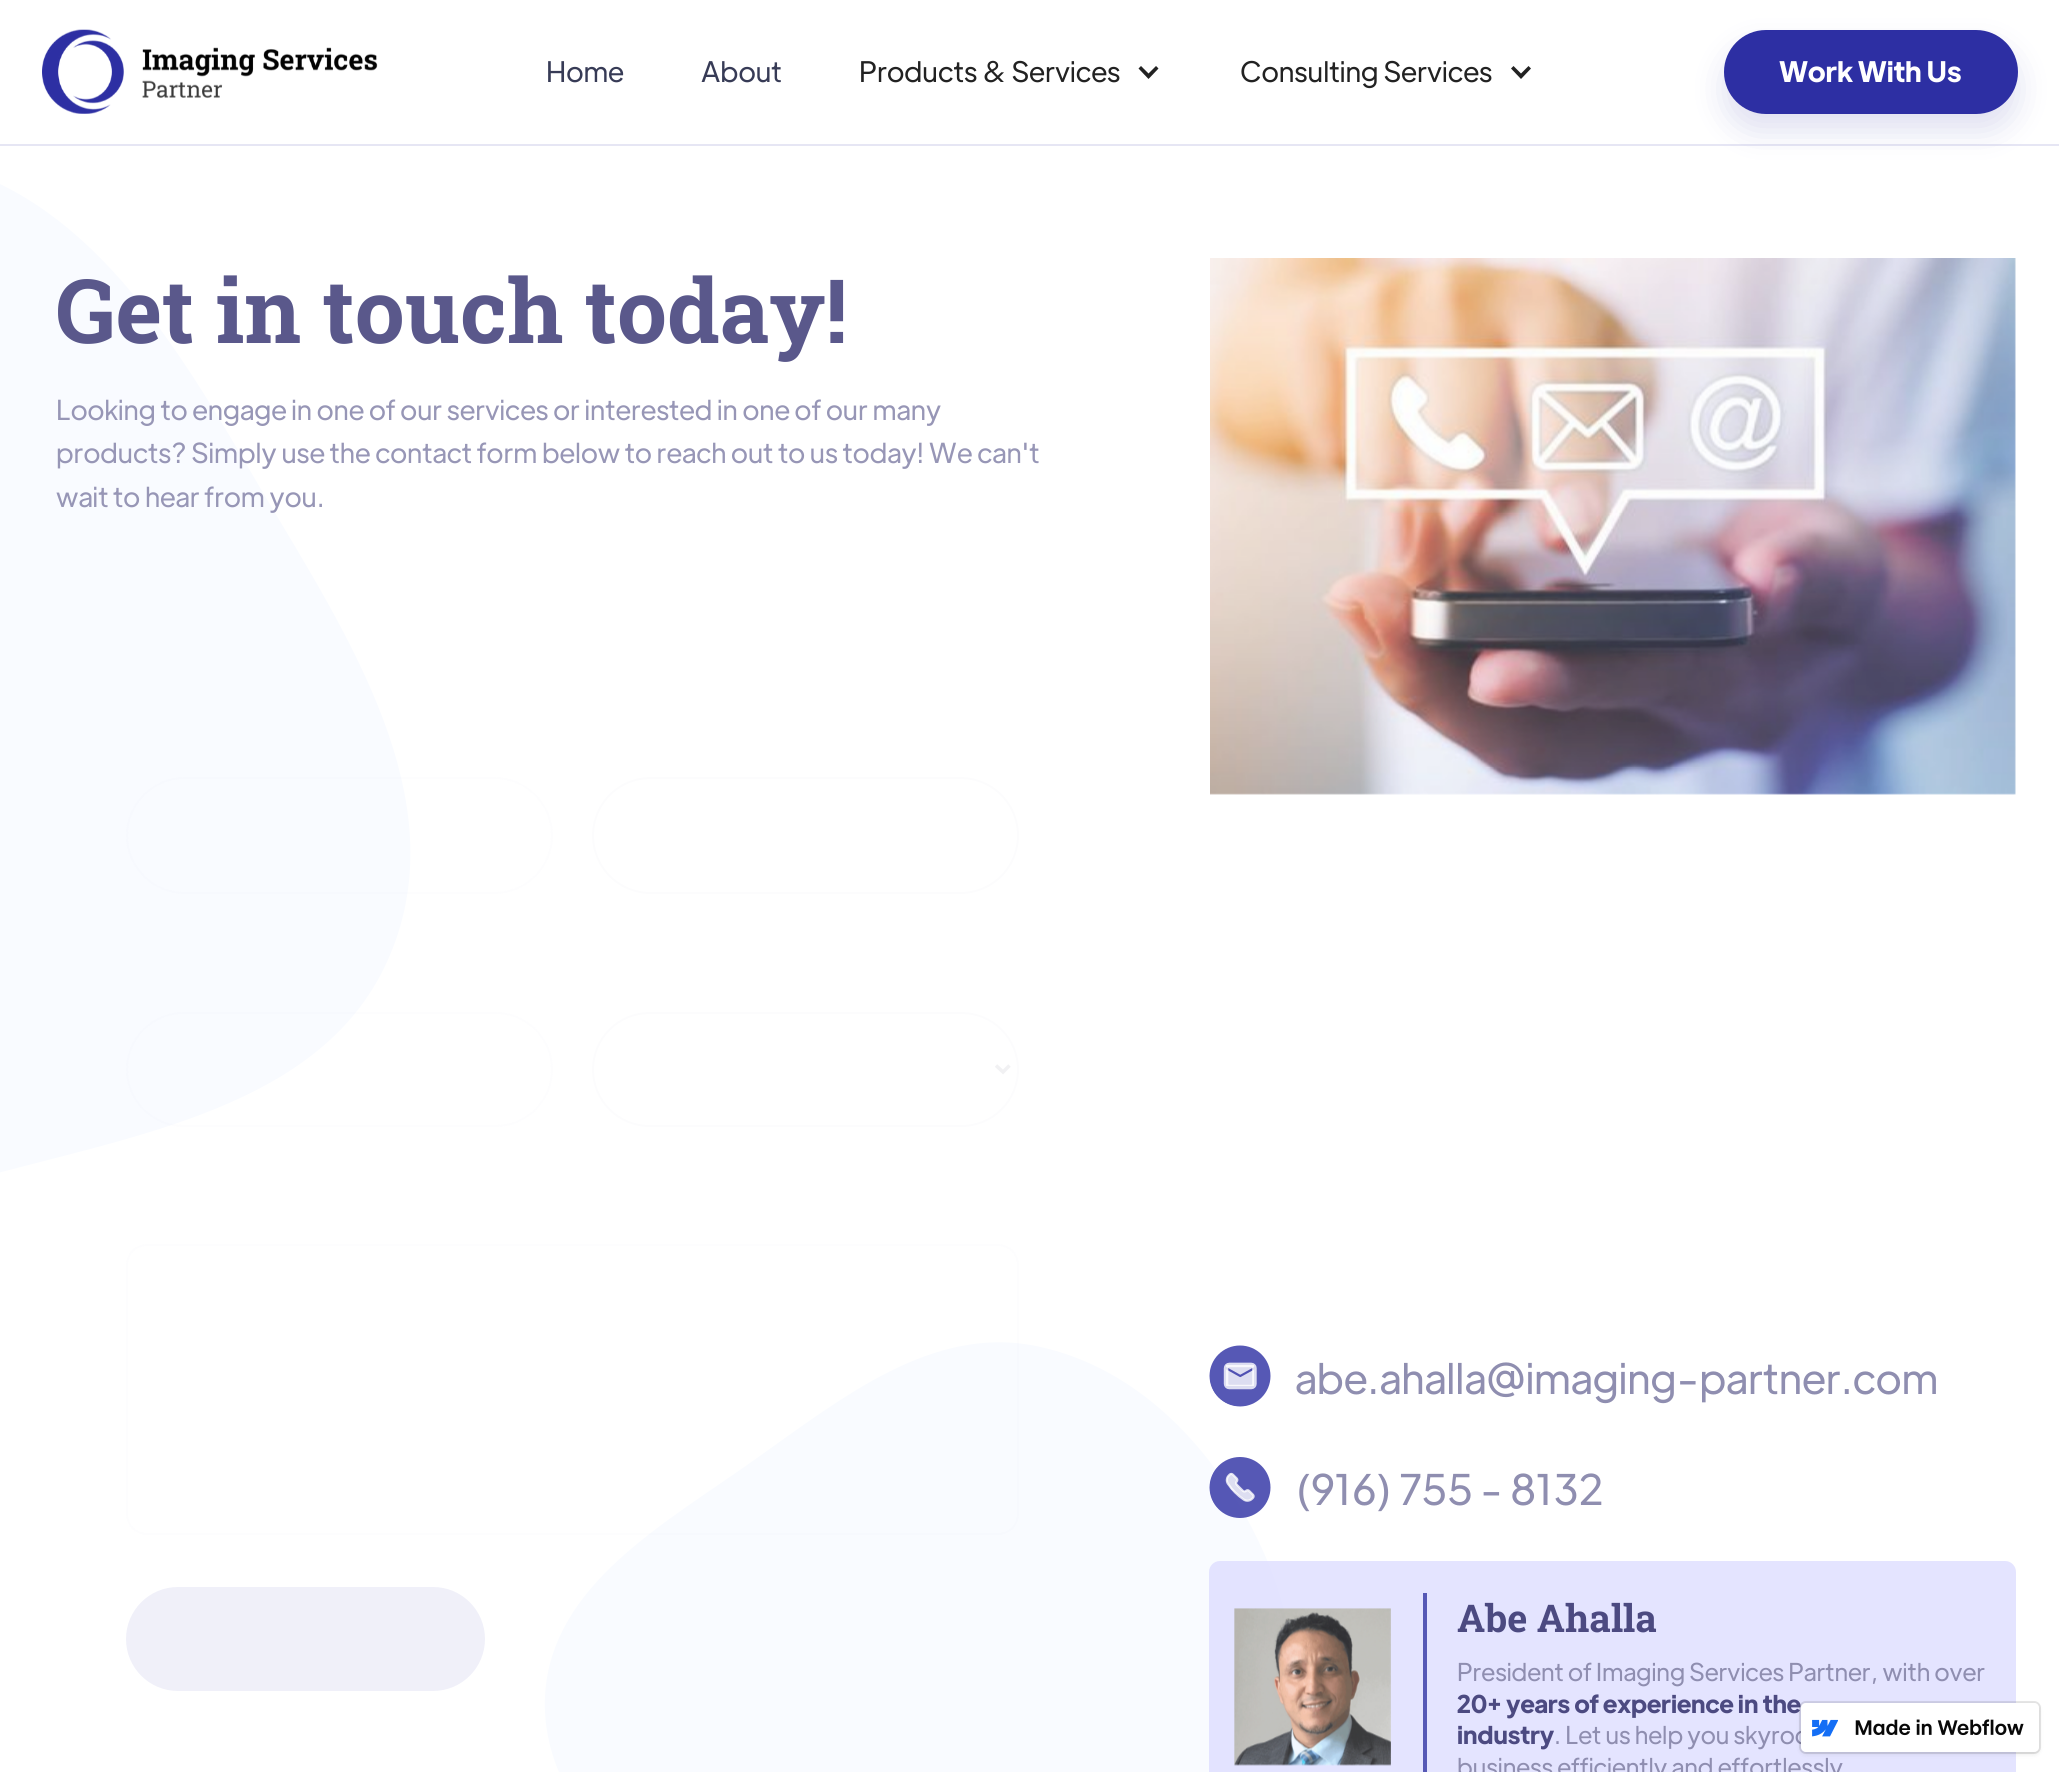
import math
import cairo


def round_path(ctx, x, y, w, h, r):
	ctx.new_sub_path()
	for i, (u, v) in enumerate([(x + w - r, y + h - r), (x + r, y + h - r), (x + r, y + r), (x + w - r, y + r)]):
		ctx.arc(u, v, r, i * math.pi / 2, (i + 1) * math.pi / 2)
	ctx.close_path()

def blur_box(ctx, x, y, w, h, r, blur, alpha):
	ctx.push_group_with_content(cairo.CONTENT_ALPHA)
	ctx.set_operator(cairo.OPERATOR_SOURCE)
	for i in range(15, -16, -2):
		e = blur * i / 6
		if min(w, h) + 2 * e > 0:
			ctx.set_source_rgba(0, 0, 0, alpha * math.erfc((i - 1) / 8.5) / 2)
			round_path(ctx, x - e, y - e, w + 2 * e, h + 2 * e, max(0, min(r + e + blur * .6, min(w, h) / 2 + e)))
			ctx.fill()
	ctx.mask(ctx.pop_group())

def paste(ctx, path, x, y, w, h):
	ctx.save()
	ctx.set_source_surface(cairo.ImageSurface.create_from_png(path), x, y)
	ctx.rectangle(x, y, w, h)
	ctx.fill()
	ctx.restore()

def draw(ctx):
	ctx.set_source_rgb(1, 1, 1)
	ctx.paint()
	paste(ctx, 'media/1.png', 42, 29, 336, 85)
	ctx.select_font_face('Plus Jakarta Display')
	ctx.set_font_size(28)
	ctx.set_source_rgb(0.216, 0.231, 0.337)
	ctx.move_to(546, 82)
	ctx.show_text('Home')
	ctx.move_to(701, 82)
	ctx.show_text('About')
	ctx.set_source_rgb(0.133, 0.133, 0.133)
	ctx.move_to(859, 82)
	ctx.show_text('Products & Services')
	ctx.new_path()
	ctx.move_to(1156, 66)
	ctx.line_to(1148.5, 73.5)
	ctx.line_to(1141, 66)
	ctx.line_to(1138.5, 68.5)
	ctx.line_to(1148.5, 79)
	ctx.line_to(1158.5, 68.5)
	ctx.close_path()
	ctx.fill()
	ctx.move_to(1240, 82)
	ctx.show_text('Consulting Services')
	ctx.new_path()
	ctx.move_to(1528.5, 66)
	ctx.line_to(1521, 73.5)
	ctx.line_to(1513.5, 66)
	ctx.line_to(1511, 68.5)
	ctx.line_to(1521, 79)
	ctx.line_to(1531, 68.5)
	ctx.close_path()
	ctx.fill()
	ctx.set_source_rgb(0.902, 0.902, 0.957)
	ctx.rectangle(0, 144, 2059, 2)
	ctx.fill()
	ctx.set_source_rgb(0.176, 0.184, 0.639)
	blur_box(ctx, 1724, 47, 294, 84, 42, 16, 0.15)
	ctx.set_source_rgb(0.176, 0.184, 0.639)
	round_path(ctx, 1724, 30, 294, 84, 42)
	ctx.fill()
	ctx.select_font_face('Plus Jakarta Display', cairo.FONT_SLANT_NORMAL, cairo.FONT_WEIGHT_BOLD)
	ctx.set_source_rgb(1, 1, 1)
	ctx.move_to(1779, 82)
	ctx.show_text('Work With Us')
	ctx.set_source_rgb(0.976, 0.984, 1)
	ctx.set_fill_rule(cairo.FILL_RULE_EVEN_ODD)
	ctx.new_path()
	ctx.move_to(262, 491)
	ctx.curve_to(348, 636, 456, 799, 390, 955)
	ctx.curve_to(326, 1108, 133, 1135, -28, 1180)
	ctx.curve_to(-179, 1222, -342, 1277, -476, 1195)
	ctx.curve_to(-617, 1109, -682, 941, -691, 776)
	ctx.curve_to(-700, 616, -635, 465, -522, 351)
	ctx.curve_to(-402, 231, -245, 130, -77, 159)
	ctx.curve_to(87, 188, 178, 347, 262, 491)
	ctx.close_path()
	ctx.fill()
	ctx.select_font_face('Roboto Slab', cairo.FONT_SLANT_NORMAL, cairo.FONT_WEIGHT_BOLD)
	ctx.set_font_size(88.75)
	ctx.set_source_rgb(0.353, 0.345, 0.545)
	ctx.move_to(56, 343)
	ctx.show_text('Get in touch today!')
	ctx.select_font_face('Plus Jakarta Display')
	ctx.set_font_size(27.25)
	ctx.set_source_rgb(0.592, 0.588, 0.714)
	for x, y, s in [
		(56, 420, 'Looking to engage in one of our services or interested in one of our many'),
		(56, 463, 'products? Simply use the contact form below to reach out to us today! We can\'t'),
		(56, 507, 'wait to hear from you.'),
	]:
		ctx.move_to(x, y)
		ctx.show_text(s)
	round_path(ctx, 127, 778, 425, 115, 57.5)
	ctx.set_source_rgba(0.851, 0.851, 0.91, 0.07)
	ctx.stroke()
	round_path(ctx, 593, 778, 425, 115, 57.5)
	ctx.set_source_rgb(0.988, 0.988, 0.992)
	ctx.stroke()
	round_path(ctx, 127, 1013, 425, 113, 56.5)
	ctx.set_source_rgba(0.851, 0.851, 0.91, 0.07)
	ctx.stroke()
	round_path(ctx, 593, 1013, 425, 113, 56.5)
	ctx.set_source_rgb(0.988, 0.988, 0.992)
	ctx.stroke()
	ctx.new_path()
	ctx.move_to(996, 1065.5)
	ctx.line_to(1003, 1072)
	ctx.line_to(1009.5, 1065.5)
	ctx.set_source_rgb(0.945, 0.945, 0.953)
	ctx.set_line_width(3.5)
	ctx.stroke()
	ctx.set_source_rgb(0.976, 0.984, 1)
	ctx.new_path()
	ctx.move_to(732, 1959)
	ctx.curve_to(645, 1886, 540, 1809, 545, 1696)
	ctx.curve_to(551, 1584, 666, 1523, 757, 1458)
	ctx.curve_to(843, 1397, 933, 1325, 1036, 1346)
	ctx.curve_to(1144, 1368, 1224, 1459, 1267, 1560)
	ctx.curve_to(1309, 1659, 1303, 1769, 1258, 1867)
	ctx.curve_to(1210, 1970, 1134, 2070, 1022, 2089)
	ctx.curve_to(912, 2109, 818, 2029, 732, 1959)
	ctx.close_path()
	ctx.fill()
	round_path(ctx, 127, 1245, 891, 289, 20)
	ctx.set_source_rgba(0.851, 0.851, 0.91, 0.07)
	ctx.set_line_width(2)
	ctx.stroke()
	ctx.set_source_rgb(0.941, 0.941, 0.973)
	round_path(ctx, 126, 1587, 359, 104, 52)
	ctx.fill()
	paste(ctx, 'media/2.png', 1210, 258, 806, 537)
	paste(ctx, 'media/3.png', 1209, 1345, 62, 62)
	ctx.set_font_size(41.75)
	ctx.set_source_rgb(0.561, 0.557, 0.69)
	ctx.move_to(1295, 1394)
	ctx.show_text('abe.ahalla@imaging-partner.com')
	paste(ctx, 'media/4.png', 1209, 1457, 62, 61)
	ctx.move_to(1295, 1505)
	ctx.show_text('(916) 755 - 8132')
	ctx.set_source_rgba(0.867, 0.867, 1, 0.8)
	round_path(ctx, 1209, 1561, 807, 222, 11)
	ctx.fill()
	paste(ctx, 'media/5.png', 1234, 1608, 157, 158)
	ctx.set_source_rgb(0.337, 0.345, 0.71)
	ctx.rectangle(1423, 1593, 4, 179)
	ctx.fill()
	ctx.select_font_face('Roboto Slab', cairo.FONT_SLANT_NORMAL, cairo.FONT_WEIGHT_BOLD)
	ctx.set_font_size(38.25)
	ctx.set_source_rgb(0.298, 0.29, 0.506)
	ctx.move_to(1457, 1632)
	ctx.show_text('Abe Ahalla')
	ctx.select_font_face('Plus Jakarta Display')
	ctx.set_font_size(24.35)
	ctx.set_source_rgb(0.561, 0.557, 0.69)
	ctx.move_to(1457, 1681)
	ctx.show_text('President of Imaging Services Partner, with over')
	ctx.select_font_face('Plus Jakarta Display', cairo.FONT_SLANT_NORMAL, cairo.FONT_WEIGHT_BOLD)
	ctx.set_source_rgb(0.298, 0.29, 0.506)
	ctx.move_to(1457, 1713)
	ctx.show_text('20+ years of experience in the')
	ctx.move_to(1457, 1744)
	ctx.show_text('industry')
	ctx.select_font_face('Plus Jakarta Display')
	ctx.set_source_rgb(0.561, 0.557, 0.69)
	ctx.move_to(1554, 1744)
	ctx.show_text('. Let us help you skyroc')
	ctx.move_to(1457, 1776)
	ctx.show_text('business efficiently and effortlessly')
	ctx.set_source_rgb(0, 0, 0)
	blur_box(ctx, 1801, 1705, 238, 49, 5, 2.5, 0.1)
	round_path(ctx, 1800, 1702, 240, 51, 6)
	ctx.set_source_rgba(0, 0, 0, 0.1)
	ctx.stroke()
	ctx.set_source_rgb(1, 1, 1)
	round_path(ctx, 1801, 1703, 238, 49, 5)
	ctx.fill()
	paste(ctx, 'media/6.png', 1812, 1719, 26, 18)
	paste(ctx, 'media/7.png', 1855, 1719, 169, 17)


surface = cairo.ImageSurface(cairo.FORMAT_RGB24, 2059, 1772)
ctx = cairo.Context(surface)
options = cairo.FontOptions()
options.set_hint_metrics(cairo.HINT_METRICS_OFF)
options.set_hint_style(cairo.HINT_STYLE_NONE)
ctx.set_font_options(options)
ctx.set_miter_limit(4)
draw(ctx)
surface.write_to_png('image.png')
